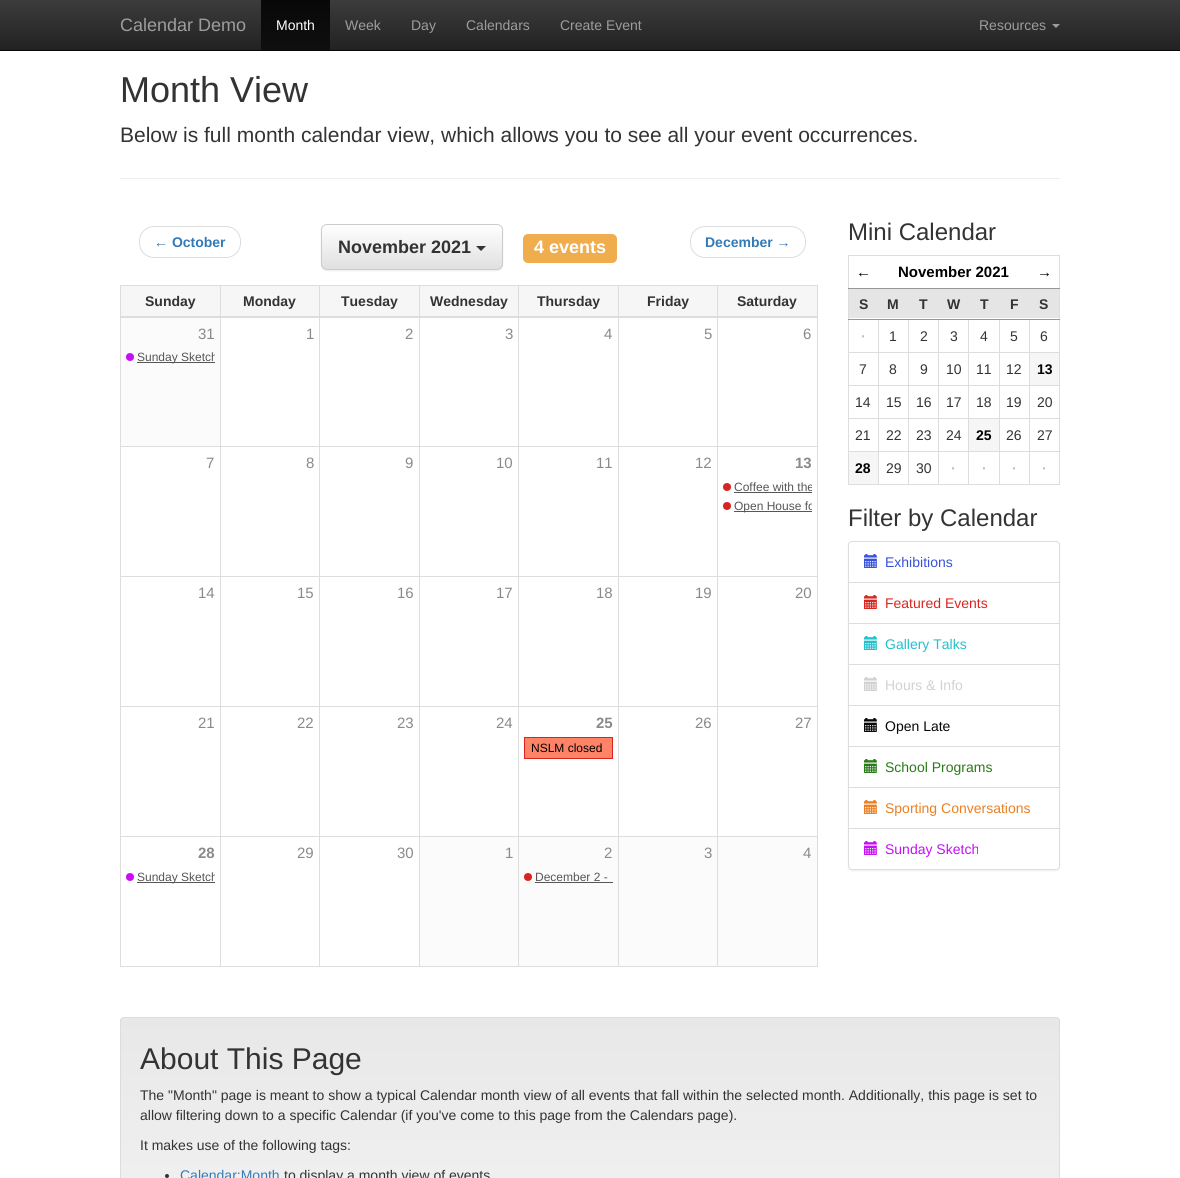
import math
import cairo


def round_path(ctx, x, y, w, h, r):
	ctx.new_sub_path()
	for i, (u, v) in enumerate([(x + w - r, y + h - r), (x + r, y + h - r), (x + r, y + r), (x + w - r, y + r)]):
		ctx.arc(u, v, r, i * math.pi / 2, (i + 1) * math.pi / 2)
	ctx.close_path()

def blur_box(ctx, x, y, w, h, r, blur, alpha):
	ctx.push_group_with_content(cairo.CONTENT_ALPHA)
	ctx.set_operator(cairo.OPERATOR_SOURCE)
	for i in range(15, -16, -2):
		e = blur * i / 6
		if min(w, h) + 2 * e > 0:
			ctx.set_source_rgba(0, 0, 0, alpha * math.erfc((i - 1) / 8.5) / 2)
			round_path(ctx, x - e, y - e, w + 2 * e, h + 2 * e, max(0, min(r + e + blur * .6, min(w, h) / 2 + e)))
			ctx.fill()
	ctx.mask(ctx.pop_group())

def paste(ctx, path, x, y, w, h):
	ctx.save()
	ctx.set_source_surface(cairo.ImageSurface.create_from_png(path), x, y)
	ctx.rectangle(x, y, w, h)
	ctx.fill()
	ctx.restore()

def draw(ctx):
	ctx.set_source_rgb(1, 1, 1)
	ctx.paint()
	gradient = cairo.LinearGradient(590, 0, 590, 50)
	gradient.add_color_stop_rgba(0, 0.235, 0.235, 0.235, 1)
	gradient.add_color_stop_rgba(1, 0.133, 0.133, 0.133, 1)
	ctx.set_source(gradient)
	ctx.rectangle(0, 0, 1180, 50)
	ctx.fill()
	ctx.set_source_rgb(0.031, 0.031, 0.031)
	ctx.rectangle(0, 50, 1180, 1)
	ctx.fill()
	ctx.select_font_face('Liberation Sans')
	ctx.set_font_size(18)
	ctx.set_source_rgb(0.616, 0.616, 0.616)
	ctx.move_to(120, 31)
	ctx.show_text('Calendar Demo')
	gradient = cairo.LinearGradient(296, 0, 296, 50)
	gradient.add_color_stop_rgba(0, 0.031, 0.031, 0.031, 1)
	gradient.add_color_stop_rgba(1, 0.059, 0.059, 0.059, 1)
	ctx.set_source(gradient)
	ctx.rectangle(261, 0, 69, 50)
	ctx.fill()
	ctx.set_font_size(14)
	ctx.set_source_rgb(1, 1, 1)
	ctx.move_to(276, 30)
	ctx.show_text('Month')
	ctx.set_source_rgb(0.616, 0.616, 0.616)
	for x, y, s in [
		(345, 30, 'Week'),
		(411, 30, 'Day'),
		(466, 30, 'Calendars'),
		(560, 30, 'Create Event'),
		(979, 30, 'Resources'),
	]:
		ctx.move_to(x, y)
		ctx.show_text(s)
	ctx.new_path()
	ctx.move_to(1052, 24)
	ctx.line_to(1060, 24)
	ctx.line_to(1056, 28)
	ctx.close_path()
	ctx.fill()
	ctx.set_source_rgb(0.933, 0.933, 0.933)
	ctx.rectangle(120, 178, 940, 1)
	ctx.fill()
	ctx.set_font_size(36)
	ctx.set_source_rgb(0.2, 0.2, 0.2)
	ctx.move_to(120, 102)
	ctx.show_text('Month View')
	ctx.set_font_size(21)
	ctx.move_to(120, 142)
	ctx.show_text('Below is full month calendar view, which allows you to see all your event occurrences.')
	round_path(ctx, 139.5, 226.5, 101, 31, 14.5)
	ctx.set_source_rgb(0.867, 0.867, 0.867)
	ctx.set_line_width(1)
	ctx.stroke()
	ctx.select_font_face('Liberation Sans', cairo.FONT_SLANT_NORMAL, cairo.FONT_WEIGHT_BOLD)
	ctx.set_font_size(14)
	ctx.set_source_rgb(0.2, 0.478, 0.718)
	ctx.move_to(154, 247)
	ctx.show_text('← October')
	ctx.set_source_rgb(0, 0, 0)
	blur_box(ctx, 321, 225, 182, 46, 6, 0.5, 0.07)
	ctx.save()
	round_path(ctx, 321, 224, 182, 46, 6)
	ctx.clip()
	gradient = cairo.LinearGradient(412, 225, 412, 269)
	gradient.add_color_stop_rgba(0, 1, 1, 1, 1)
	gradient.add_color_stop_rgba(1, 0.878, 0.878, 0.878, 1)
	ctx.set_source(gradient)
	ctx.rectangle(321, 225, 182, 44)
	ctx.fill()
	ctx.restore()
	round_path(ctx, 321.5, 224.5, 181, 45, 5.5)
	ctx.set_source_rgb(0.8, 0.8, 0.8)
	ctx.stroke()
	ctx.set_font_size(18)
	ctx.set_source_rgb(0.2, 0.2, 0.2)
	ctx.move_to(338, 253)
	ctx.show_text('November 2021')
	ctx.new_path()
	ctx.move_to(476, 246)
	ctx.line_to(486, 246)
	ctx.line_to(481, 251)
	ctx.close_path()
	ctx.fill()
	ctx.set_source_rgb(0.941, 0.678, 0.306)
	round_path(ctx, 523, 234, 94, 29, 5)
	ctx.fill()
	ctx.set_source_rgb(1, 1, 1)
	ctx.move_to(534, 253)
	ctx.show_text('4 events')
	round_path(ctx, 690.5, 226.5, 115, 31, 14.5)
	ctx.set_source_rgb(0.867, 0.867, 0.867)
	ctx.stroke()
	ctx.set_font_size(14)
	ctx.set_source_rgb(0.2, 0.478, 0.718)
	ctx.move_to(705, 247)
	ctx.show_text('December →')
	ctx.set_source_rgb(0.867, 0.867, 0.867)
	ctx.rectangle(120, 285, 698, 1)
	ctx.rectangle(817, 285, 1, 682)
	ctx.rectangle(120, 966, 698, 1)
	ctx.rectangle(120, 285, 1, 682)
	ctx.fill()
	ctx.set_source_rgb(0.961, 0.961, 0.961)
	ctx.rectangle(121, 286, 99, 30)
	ctx.fill()
	ctx.set_source_rgb(0.2, 0.2, 0.2)
	ctx.move_to(145, 306)
	ctx.show_text('Sunday')
	ctx.set_source_rgb(0.961, 0.961, 0.961)
	ctx.rectangle(221, 286, 98, 30)
	ctx.fill()
	ctx.set_source_rgb(0.2, 0.2, 0.2)
	ctx.move_to(243, 306)
	ctx.show_text('Monday')
	ctx.set_source_rgb(0.961, 0.961, 0.961)
	ctx.rectangle(320, 286, 99, 30)
	ctx.fill()
	ctx.set_source_rgb(0.2, 0.2, 0.2)
	ctx.move_to(341, 306)
	ctx.show_text('Tuesday')
	ctx.set_source_rgb(0.961, 0.961, 0.961)
	ctx.rectangle(420, 286, 98, 30)
	ctx.fill()
	ctx.set_source_rgb(0.2, 0.2, 0.2)
	ctx.move_to(430, 306)
	ctx.show_text('Wednesday')
	ctx.set_source_rgb(0.961, 0.961, 0.961)
	ctx.rectangle(519, 286, 99, 30)
	ctx.fill()
	ctx.set_source_rgb(0.2, 0.2, 0.2)
	ctx.move_to(537, 306)
	ctx.show_text('Thursday')
	ctx.set_source_rgb(0.961, 0.961, 0.961)
	ctx.rectangle(619, 286, 98, 30)
	ctx.fill()
	ctx.set_source_rgb(0.2, 0.2, 0.2)
	ctx.move_to(647, 306)
	ctx.show_text('Friday')
	ctx.set_source_rgb(0.961, 0.961, 0.961)
	ctx.rectangle(718, 286, 99, 30)
	ctx.fill()
	ctx.set_source_rgb(0.867, 0.867, 0.867)
	ctx.rectangle(717, 446, 101, 1)
	ctx.rectangle(717, 576, 101, 1)
	ctx.rectangle(717, 706, 101, 1)
	ctx.rectangle(717, 836, 101, 1)
	ctx.rectangle(717, 836, 1, 131)
	ctx.rectangle(618, 836, 100, 1)
	ctx.rectangle(717, 706, 1, 131)
	ctx.rectangle(618, 706, 100, 1)
	ctx.rectangle(717, 576, 1, 131)
	ctx.rectangle(618, 576, 100, 1)
	ctx.rectangle(717, 446, 1, 131)
	ctx.rectangle(618, 446, 100, 1)
	ctx.rectangle(618, 836, 1, 131)
	ctx.rectangle(518, 836, 101, 1)
	ctx.rectangle(618, 706, 1, 131)
	ctx.rectangle(518, 706, 101, 1)
	ctx.rectangle(618, 576, 1, 131)
	ctx.rectangle(518, 576, 101, 1)
	ctx.rectangle(618, 446, 1, 131)
	ctx.rectangle(518, 446, 101, 1)
	ctx.rectangle(518, 836, 1, 131)
	ctx.rectangle(419, 836, 100, 1)
	ctx.rectangle(518, 706, 1, 131)
	ctx.rectangle(419, 706, 100, 1)
	ctx.rectangle(518, 576, 1, 131)
	ctx.rectangle(419, 576, 100, 1)
	ctx.rectangle(518, 446, 1, 131)
	ctx.rectangle(419, 446, 100, 1)
	ctx.rectangle(419, 836, 1, 131)
	ctx.rectangle(319, 836, 101, 1)
	ctx.rectangle(419, 706, 1, 131)
	ctx.rectangle(319, 706, 101, 1)
	ctx.rectangle(419, 576, 1, 131)
	ctx.rectangle(319, 576, 101, 1)
	ctx.rectangle(419, 446, 1, 131)
	ctx.rectangle(319, 446, 101, 1)
	ctx.rectangle(319, 836, 1, 131)
	ctx.rectangle(220, 836, 100, 1)
	ctx.rectangle(319, 706, 1, 131)
	ctx.rectangle(220, 706, 100, 1)
	ctx.rectangle(319, 576, 1, 131)
	ctx.rectangle(220, 576, 100, 1)
	ctx.rectangle(319, 446, 1, 131)
	ctx.rectangle(220, 446, 100, 1)
	ctx.rectangle(220, 836, 1, 131)
	ctx.rectangle(120, 836, 101, 1)
	ctx.rectangle(220, 706, 1, 131)
	ctx.rectangle(120, 706, 101, 1)
	ctx.rectangle(220, 576, 1, 131)
	ctx.rectangle(120, 576, 101, 1)
	ctx.rectangle(220, 446, 1, 131)
	ctx.rectangle(120, 446, 101, 1)
	ctx.rectangle(220, 285, 1, 162)
	ctx.rectangle(319, 285, 1, 162)
	ctx.rectangle(419, 285, 1, 162)
	ctx.rectangle(518, 285, 1, 162)
	ctx.rectangle(618, 285, 1, 162)
	ctx.rectangle(717, 285, 1, 162)
	ctx.rectangle(120, 316, 698, 2)
	ctx.fill()
	ctx.set_source_rgb(0.2, 0.2, 0.2)
	ctx.move_to(737, 306)
	ctx.show_text('Saturday')
	ctx.set_source_rgb(0.984, 0.984, 0.984)
	ctx.rectangle(121, 318, 99, 128)
	ctx.fill()
	ctx.select_font_face('Liberation Sans')
	ctx.set_font_size(15)
	ctx.set_source_rgb(0.541, 0.541, 0.541)
	ctx.move_to(198, 339)
	ctx.show_text('31')
	ctx.set_source_rgb(0.78, 0.055, 0.961)
	ctx.new_path()
	ctx.arc(130, 357, 4, 0, 2 * math.pi)
	ctx.fill()
	ctx.set_source_rgb(0.337, 0.337, 0.337)
	ctx.rectangle(137, 362, 78, 1)
	ctx.fill()
	ctx.save()
	ctx.rectangle(126, 347, 89, 20)
	ctx.clip()
	ctx.set_font_size(12)
	ctx.move_to(137, 361)
	ctx.show_text('Sunday Sketch')
	ctx.restore()
	ctx.set_source_rgb(0.541, 0.541, 0.541)
	for x, y, s in [
		(306, 339, '1'),
		(405, 339, '2'),
		(505, 339, '3'),
		(604, 339, '4'),
		(704, 339, '5'),
		(803, 339, '6'),
		(206, 468, '7'),
		(306, 468, '8'),
		(405, 468, '9'),
		(496, 468, '10'),
		(596, 468, '11'),
		(695, 468, '12'),
	]:
		ctx.move_to(x, y)
		ctx.show_text(s)
	ctx.select_font_face('Liberation Sans', cairo.FONT_SLANT_NORMAL, cairo.FONT_WEIGHT_BOLD)
	ctx.move_to(795, 468)
	ctx.show_text('13')
	ctx.set_source_rgb(0.851, 0.145, 0.122)
	ctx.new_path()
	ctx.arc(727, 487, 4, 0, 2 * math.pi)
	ctx.fill()
	ctx.save()
	ctx.rectangle(723, 477, 89, 19)
	ctx.clip()
	ctx.select_font_face('Liberation Sans')
	ctx.set_font_size(12)
	ctx.set_source_rgb(0.337, 0.337, 0.337)
	ctx.move_to(734, 491)
	ctx.show_text('Coffee with the')
	ctx.restore()
	ctx.set_source_rgb(0.337, 0.337, 0.337)
	ctx.rectangle(734, 492, 78, 1)
	ctx.fill()
	ctx.set_source_rgb(0.851, 0.145, 0.122)
	ctx.arc(727, 506, 4, 0, 2 * math.pi)
	ctx.fill()
	ctx.set_source_rgb(0.337, 0.337, 0.337)
	ctx.rectangle(734, 511, 78, 1)
	ctx.fill()
	ctx.save()
	ctx.rectangle(723, 496, 89, 19)
	ctx.clip()
	ctx.select_font_face('Liberation Sans')
	ctx.set_font_size(12)
	ctx.move_to(734, 510)
	ctx.show_text('Open House fo')
	ctx.restore()
	ctx.select_font_face('Liberation Sans')
	ctx.set_source_rgb(0.541, 0.541, 0.541)
	for x, y, s in [
		(198, 598, '14'),
		(297, 598, '15'),
		(397, 598, '16'),
		(496, 598, '17'),
		(596, 598, '18'),
		(695, 598, '19'),
		(795, 598, '20'),
		(198, 728, '21'),
		(297, 728, '22'),
		(397, 728, '23'),
		(496, 728, '24'),
	]:
		ctx.move_to(x, y)
		ctx.show_text(s)
	ctx.select_font_face('Liberation Sans', cairo.FONT_SLANT_NORMAL, cairo.FONT_WEIGHT_BOLD)
	ctx.move_to(596, 728)
	ctx.show_text('25')
	ctx.set_source_rgb(1, 0.514, 0.404)
	ctx.rectangle(524.5, 737.5, 88, 21)
	ctx.fill_preserve()
	ctx.set_source_rgb(0.851, 0.145, 0.122)
	ctx.stroke()
	ctx.select_font_face('Liberation Sans')
	ctx.set_font_size(12)
	ctx.set_source_rgb(0, 0, 0)
	ctx.move_to(531, 752)
	ctx.show_text('NSLM closed')
	ctx.set_font_size(15)
	ctx.set_source_rgb(0.541, 0.541, 0.541)
	ctx.move_to(695, 728)
	ctx.show_text('26')
	ctx.move_to(795, 728)
	ctx.show_text('27')
	ctx.select_font_face('Liberation Sans', cairo.FONT_SLANT_NORMAL, cairo.FONT_WEIGHT_BOLD)
	ctx.move_to(198, 858)
	ctx.show_text('28')
	ctx.set_source_rgb(0.78, 0.055, 0.961)
	ctx.new_path()
	ctx.arc(130, 877, 4, 0, 2 * math.pi)
	ctx.fill()
	ctx.set_source_rgb(0.337, 0.337, 0.337)
	ctx.rectangle(137, 882, 78, 1)
	ctx.fill()
	ctx.save()
	ctx.rectangle(126, 867, 89, 19)
	ctx.clip()
	ctx.select_font_face('Liberation Sans')
	ctx.set_font_size(12)
	ctx.move_to(137, 881)
	ctx.show_text('Sunday Sketch')
	ctx.restore()
	ctx.select_font_face('Liberation Sans')
	ctx.set_source_rgb(0.541, 0.541, 0.541)
	ctx.move_to(297, 858)
	ctx.show_text('29')
	ctx.move_to(397, 858)
	ctx.show_text('30')
	ctx.set_source_rgb(0.984, 0.984, 0.984)
	ctx.rectangle(420, 837, 98, 129)
	ctx.fill()
	ctx.set_source_rgb(0.541, 0.541, 0.541)
	ctx.move_to(505, 858)
	ctx.show_text('1')
	ctx.set_source_rgb(0.984, 0.984, 0.984)
	ctx.rectangle(519, 837, 99, 129)
	ctx.fill()
	ctx.set_source_rgb(0.541, 0.541, 0.541)
	ctx.move_to(604, 858)
	ctx.show_text('2')
	ctx.set_source_rgb(0.851, 0.145, 0.122)
	ctx.new_path()
	ctx.arc(528, 877, 4, 0, 2 * math.pi)
	ctx.fill()
	ctx.set_font_size(12)
	ctx.set_source_rgb(0.337, 0.337, 0.337)
	ctx.move_to(535, 881)
	ctx.show_text('December 2 -')
	ctx.rectangle(535, 882, 78, 1)
	ctx.fill()
	ctx.set_source_rgb(0.984, 0.984, 0.984)
	ctx.rectangle(619, 837, 98, 129)
	ctx.fill()
	ctx.set_font_size(15)
	ctx.set_source_rgb(0.541, 0.541, 0.541)
	ctx.move_to(704, 858)
	ctx.show_text('3')
	ctx.set_source_rgb(0.984, 0.984, 0.984)
	ctx.rectangle(718, 837, 99, 129)
	ctx.fill()
	ctx.set_source_rgb(0.541, 0.541, 0.541)
	ctx.move_to(803, 858)
	ctx.show_text('4')
	ctx.set_font_size(24)
	ctx.set_source_rgb(0.2, 0.2, 0.2)
	ctx.move_to(848, 240)
	ctx.show_text('Mini Calendar')
	ctx.set_source_rgb(0.867, 0.867, 0.867)
	ctx.rectangle(848, 255, 212, 1)
	ctx.rectangle(1059, 255, 1, 230)
	ctx.rectangle(848, 484, 212, 1)
	ctx.rectangle(848, 255, 1, 230)
	ctx.fill()
	ctx.select_font_face('Liberation Sans', cairo.FONT_SLANT_NORMAL, cairo.FONT_WEIGHT_BOLD)
	ctx.set_font_size(15)
	ctx.set_source_rgb(0, 0, 0)
	for x, y, s in [
		(856, 277, '←'),
		(898, 277, 'November 2021'),
		(1037, 277, '→'),
	]:
		ctx.move_to(x, y)
		ctx.show_text(s)
	ctx.set_source_rgb(0.898, 0.898, 0.898)
	ctx.rectangle(849, 289, 210, 29)
	ctx.fill()
	ctx.set_font_size(14)
	ctx.set_source_rgb(0.2, 0.2, 0.2)
	for x, y, s in [
		(859, 309, 'S'),
		(887, 309, 'M'),
		(919, 309, 'T'),
		(947, 309, 'W'),
		(980, 309, 'T'),
		(1010, 309, 'F'),
	]:
		ctx.move_to(x, y)
		ctx.show_text(s)
	ctx.set_source_rgb(0.592, 0.592, 0.592)
	ctx.rectangle(848, 288, 212, 1)
	ctx.fill()
	ctx.set_source_rgb(0.867, 0.867, 0.867)
	ctx.rectangle(1029, 352, 31, 1)
	ctx.rectangle(1029, 385, 31, 1)
	ctx.rectangle(1029, 418, 31, 1)
	ctx.rectangle(1029, 451, 31, 1)
	ctx.rectangle(1029, 451, 1, 34)
	ctx.rectangle(999, 451, 31, 1)
	ctx.rectangle(1029, 418, 1, 34)
	ctx.rectangle(999, 418, 31, 1)
	ctx.rectangle(1029, 385, 1, 34)
	ctx.rectangle(999, 385, 31, 1)
	ctx.rectangle(1029, 352, 1, 34)
	ctx.rectangle(999, 352, 31, 1)
	ctx.rectangle(999, 451, 1, 34)
	ctx.rectangle(968, 451, 32, 1)
	ctx.rectangle(999, 418, 1, 34)
	ctx.rectangle(968, 418, 32, 1)
	ctx.rectangle(999, 385, 1, 34)
	ctx.rectangle(968, 385, 32, 1)
	ctx.rectangle(999, 352, 1, 34)
	ctx.rectangle(968, 352, 32, 1)
	ctx.rectangle(968, 451, 1, 34)
	ctx.rectangle(938, 451, 31, 1)
	ctx.rectangle(968, 418, 1, 34)
	ctx.rectangle(938, 418, 31, 1)
	ctx.rectangle(968, 385, 1, 34)
	ctx.rectangle(938, 385, 31, 1)
	ctx.rectangle(968, 352, 1, 34)
	ctx.rectangle(938, 352, 31, 1)
	ctx.rectangle(938, 451, 1, 34)
	ctx.rectangle(908, 451, 31, 1)
	ctx.rectangle(938, 418, 1, 34)
	ctx.rectangle(908, 418, 31, 1)
	ctx.rectangle(938, 385, 1, 34)
	ctx.rectangle(908, 385, 31, 1)
	ctx.rectangle(938, 352, 1, 34)
	ctx.rectangle(908, 352, 31, 1)
	ctx.rectangle(908, 451, 1, 34)
	ctx.rectangle(878, 451, 31, 1)
	ctx.rectangle(908, 418, 1, 34)
	ctx.rectangle(878, 418, 31, 1)
	ctx.rectangle(908, 385, 1, 34)
	ctx.rectangle(878, 385, 31, 1)
	ctx.rectangle(908, 352, 1, 34)
	ctx.rectangle(878, 352, 31, 1)
	ctx.rectangle(878, 451, 1, 34)
	ctx.rectangle(848, 451, 31, 1)
	ctx.rectangle(878, 418, 1, 34)
	ctx.rectangle(848, 418, 31, 1)
	ctx.rectangle(878, 385, 1, 34)
	ctx.rectangle(848, 385, 31, 1)
	ctx.rectangle(878, 352, 1, 34)
	ctx.rectangle(848, 352, 31, 1)
	ctx.rectangle(878, 319, 1, 34)
	ctx.rectangle(908, 319, 1, 34)
	ctx.rectangle(938, 319, 1, 34)
	ctx.rectangle(968, 319, 1, 34)
	ctx.rectangle(999, 319, 1, 34)
	ctx.rectangle(1029, 319, 1, 34)
	ctx.fill()
	ctx.set_source_rgb(0.592, 0.592, 0.592)
	ctx.rectangle(848, 319, 212, 1)
	ctx.fill()
	ctx.set_source_rgb(0.2, 0.2, 0.2)
	ctx.move_to(1039, 309)
	ctx.show_text('S')
	ctx.set_source_rgb(0.737, 0.737, 0.737)
	ctx.move_to(861, 341)
	ctx.show_text('·')
	ctx.select_font_face('Liberation Sans')
	ctx.set_source_rgb(0.2, 0.2, 0.2)
	for x, y, s in [
		(889, 341, '1'),
		(920, 341, '2'),
		(950, 341, '3'),
		(980, 341, '4'),
		(1010, 341, '5'),
		(1040, 341, '6'),
		(859, 374, '7'),
		(889, 374, '8'),
		(920, 374, '9'),
		(946, 374, '10'),
		(976, 374, '11'),
		(1006, 374, '12'),
	]:
		ctx.move_to(x, y)
		ctx.show_text(s)
	ctx.set_source_rgb(0.961, 0.961, 0.961)
	ctx.rectangle(1030, 353, 29, 32)
	ctx.fill()
	ctx.select_font_face('Liberation Sans', cairo.FONT_SLANT_NORMAL, cairo.FONT_WEIGHT_BOLD)
	ctx.set_source_rgb(0, 0, 0)
	ctx.move_to(1037, 374)
	ctx.show_text('13')
	ctx.select_font_face('Liberation Sans')
	ctx.set_source_rgb(0.2, 0.2, 0.2)
	for x, y, s in [
		(855, 407, '14'),
		(886, 407, '15'),
		(916, 407, '16'),
		(946, 407, '17'),
		(976, 407, '18'),
		(1006, 407, '19'),
		(1037, 407, '20'),
		(855, 440, '21'),
		(886, 440, '22'),
		(916, 440, '23'),
		(946, 440, '24'),
	]:
		ctx.move_to(x, y)
		ctx.show_text(s)
	ctx.set_source_rgb(0.961, 0.961, 0.961)
	ctx.rectangle(969, 419, 30, 32)
	ctx.fill()
	ctx.select_font_face('Liberation Sans', cairo.FONT_SLANT_NORMAL, cairo.FONT_WEIGHT_BOLD)
	ctx.set_source_rgb(0, 0, 0)
	ctx.move_to(976, 440)
	ctx.show_text('25')
	ctx.select_font_face('Liberation Sans')
	ctx.set_source_rgb(0.2, 0.2, 0.2)
	ctx.move_to(1006, 440)
	ctx.show_text('26')
	ctx.move_to(1037, 440)
	ctx.show_text('27')
	ctx.set_source_rgb(0.961, 0.961, 0.961)
	ctx.rectangle(849, 452, 29, 32)
	ctx.fill()
	ctx.select_font_face('Liberation Sans', cairo.FONT_SLANT_NORMAL, cairo.FONT_WEIGHT_BOLD)
	ctx.set_source_rgb(0, 0, 0)
	ctx.move_to(855, 473)
	ctx.show_text('28')
	ctx.select_font_face('Liberation Sans')
	ctx.set_source_rgb(0.2, 0.2, 0.2)
	ctx.move_to(886, 473)
	ctx.show_text('29')
	ctx.move_to(916, 473)
	ctx.show_text('30')
	ctx.select_font_face('Liberation Sans', cairo.FONT_SLANT_NORMAL, cairo.FONT_WEIGHT_BOLD)
	ctx.set_source_rgb(0.737, 0.737, 0.737)
	for x, y, s in [
		(951, 473, '·'),
		(982, 473, '·'),
		(1012, 473, '·'),
		(1042, 473, '·'),
	]:
		ctx.move_to(x, y)
		ctx.show_text(s)
	ctx.select_font_face('Liberation Sans')
	ctx.set_font_size(24)
	ctx.set_source_rgb(0.2, 0.2, 0.2)
	ctx.move_to(848, 526)
	ctx.show_text('Filter by Calendar')
	ctx.save()
	ctx.set_fill_rule(cairo.FILL_RULE_EVEN_ODD)
	ctx.new_path()
	ctx.move_to(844, 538)
	ctx.line_to(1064, 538)
	ctx.line_to(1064, 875)
	ctx.line_to(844, 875)
	ctx.close_path()
	ctx.move_to(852, 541)
	ctx.line_to(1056, 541)
	ctx.curve_to(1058, 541, 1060, 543, 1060, 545)
	ctx.line_to(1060, 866)
	ctx.curve_to(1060, 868, 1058, 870, 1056, 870)
	ctx.line_to(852, 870)
	ctx.curve_to(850, 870, 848, 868, 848, 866)
	ctx.line_to(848, 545)
	ctx.curve_to(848, 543, 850, 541, 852, 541)
	ctx.close_path()
	ctx.clip()
	ctx.set_source_rgb(0, 0, 0)
	blur_box(ctx, 848, 542, 212, 329, 4, 1, 0.07)
	ctx.restore()
	ctx.new_path()
	ctx.move_to(852, 541.5)
	ctx.line_to(1056, 541.5)
	ctx.curve_to(1058, 541.5, 1059.5, 543, 1059.5, 545)
	ctx.line_to(1059.5, 582.5)
	ctx.line_to(848.5, 582.5)
	ctx.line_to(848.5, 545)
	ctx.curve_to(848.5, 543, 850, 541.5, 852, 541.5)
	ctx.close_path()
	ctx.set_source_rgb(0.867, 0.867, 0.867)
	ctx.stroke()
	paste(ctx, 'media/1.png', 864, 554, 13, 14)
	ctx.set_font_size(14)
	ctx.set_source_rgb(0.216, 0.322, 0.859)
	ctx.move_to(885, 567)
	ctx.show_text('Exhibitions')
	ctx.rectangle(848.5, 582.5, 211, 41)
	ctx.set_source_rgb(0.867, 0.867, 0.867)
	ctx.stroke()
	paste(ctx, 'media/2.png', 864, 595, 13, 14)
	ctx.set_source_rgb(0.851, 0.145, 0.122)
	ctx.move_to(885, 608)
	ctx.show_text('Featured Events')
	ctx.rectangle(848.5, 623.5, 211, 41)
	ctx.set_source_rgb(0.867, 0.867, 0.867)
	ctx.stroke()
	paste(ctx, 'media/3.png', 864, 636, 13, 14)
	ctx.set_source_rgb(0.133, 0.757, 0.8)
	ctx.move_to(885, 649)
	ctx.show_text('Gallery Talks')
	ctx.rectangle(848.5, 664.5, 211, 41)
	ctx.set_source_rgb(0.867, 0.867, 0.867)
	ctx.stroke()
	paste(ctx, 'media/4.png', 864, 677, 13, 14)
	ctx.set_source_rgb(0.82, 0.82, 0.82)
	ctx.move_to(885, 690)
	ctx.show_text('Hours & Info')
	ctx.rectangle(848.5, 705.5, 211, 41)
	ctx.set_source_rgb(0.867, 0.867, 0.867)
	ctx.stroke()
	paste(ctx, 'media/5.png', 864, 718, 13, 14)
	ctx.set_source_rgb(0.031, 0.031, 0.031)
	ctx.move_to(885, 731)
	ctx.show_text('Open Late')
	ctx.rectangle(848.5, 746.5, 211, 41)
	ctx.set_source_rgb(0.867, 0.867, 0.867)
	ctx.stroke()
	paste(ctx, 'media/6.png', 864, 759, 13, 14)
	ctx.set_source_rgb(0.161, 0.478, 0.094)
	ctx.move_to(885, 772)
	ctx.show_text('School Programs')
	ctx.rectangle(848.5, 787.5, 211, 41)
	ctx.set_source_rgb(0.867, 0.867, 0.867)
	ctx.stroke()
	paste(ctx, 'media/7.png', 864, 800, 13, 14)
	ctx.set_source_rgb(0.922, 0.498, 0.129)
	ctx.move_to(885, 813)
	ctx.show_text('Sporting Conversations')
	ctx.set_source_rgb(1, 1, 1)
	ctx.new_path()
	ctx.move_to(848.5, 828.5)
	ctx.line_to(1059.5, 828.5)
	ctx.line_to(1059.5, 866)
	ctx.curve_to(1059.5, 868, 1058, 869.5, 1056, 869.5)
	ctx.line_to(852, 869.5)
	ctx.curve_to(850, 869.5, 848.5, 868, 848.5, 866)
	ctx.close_path()
	ctx.fill_preserve()
	ctx.set_source_rgb(0.867, 0.867, 0.867)
	ctx.stroke()
	paste(ctx, 'media/8.png', 864, 841, 13, 14)
	ctx.set_source_rgb(0.78, 0.055, 0.961)
	ctx.move_to(885, 854)
	ctx.show_text('Sunday Sketch')
	ctx.save()
	round_path(ctx, 120, 1017, 940, 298, 4)
	ctx.clip()
	gradient = cairo.LinearGradient(590, 1018, 590, 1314)
	gradient.add_color_stop_rgba(0, 0.91, 0.91, 0.91, 1)
	gradient.add_color_stop_rgba(1, 0.961, 0.961, 0.961, 1)
	ctx.set_source(gradient)
	ctx.rectangle(120, 1018, 940, 160)
	ctx.fill()
	ctx.restore()
	round_path(ctx, 120.5, 1017.5, 939, 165, 3.5)
	ctx.set_source_rgb(0.863, 0.863, 0.863)
	ctx.stroke()
	ctx.set_font_size(30)
	ctx.set_source_rgb(0.2, 0.2, 0.2)
	ctx.move_to(140, 1069)
	ctx.show_text('About This Page')
	ctx.set_font_size(14)
	for x, y, s in [
		(140, 1100, 'The "Month" page is meant to show a typical Calendar month view of all events that fall within the selected month. Additionally, this page is set to'),
		(140, 1120, 'allow filtering down to a specific Calendar (if you\'ve come to this page from the Calendars page).'),
		(140, 1150, 'It makes use of the following tags:'),
	]:
		ctx.move_to(x, y)
		ctx.show_text(s)
	ctx.new_path()
	ctx.arc(167, 1176, 2, 0, 2 * math.pi)
	ctx.fill()
	ctx.set_source_rgb(0.2, 0.478, 0.718)
	ctx.move_to(180, 1180)
	ctx.show_text('Calendar:Month')
	ctx.set_source_rgb(0.2, 0.2, 0.2)
	ctx.move_to(284, 1180)
	ctx.show_text('to display a month view of events')


surface = cairo.ImageSurface(cairo.FORMAT_RGB24, 1180, 1178)
ctx = cairo.Context(surface)
options = cairo.FontOptions()
options.set_hint_metrics(cairo.HINT_METRICS_OFF)
options.set_hint_style(cairo.HINT_STYLE_NONE)
ctx.set_font_options(options)
ctx.set_miter_limit(4)
draw(ctx)
surface.write_to_png('image.png')
